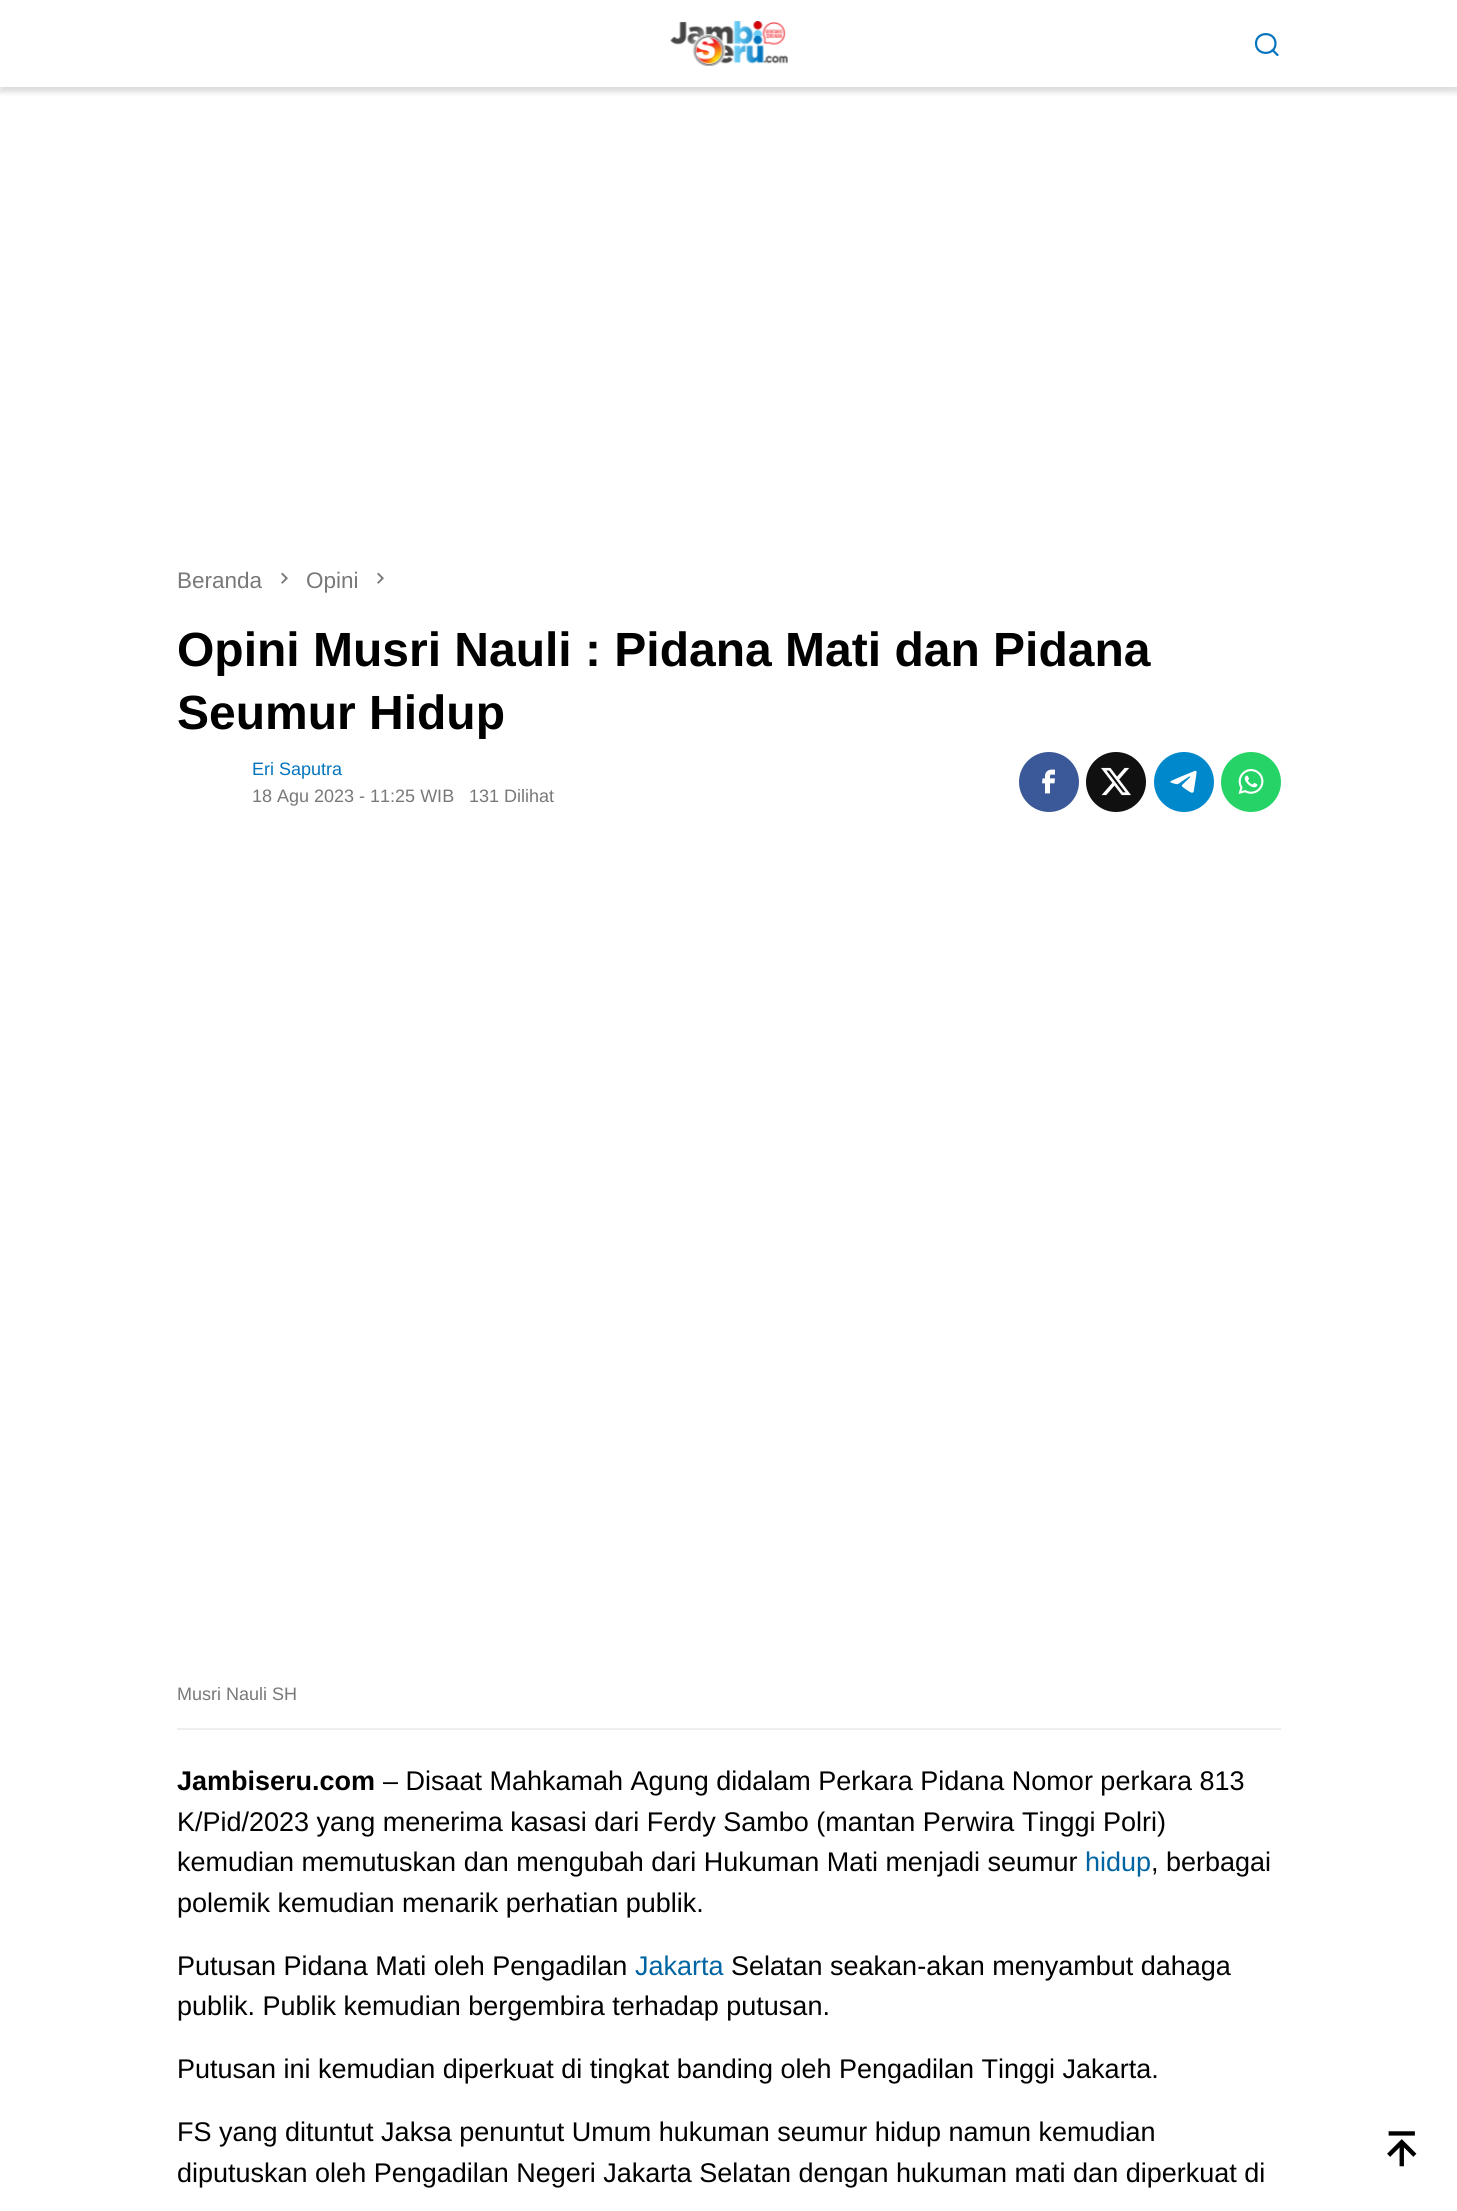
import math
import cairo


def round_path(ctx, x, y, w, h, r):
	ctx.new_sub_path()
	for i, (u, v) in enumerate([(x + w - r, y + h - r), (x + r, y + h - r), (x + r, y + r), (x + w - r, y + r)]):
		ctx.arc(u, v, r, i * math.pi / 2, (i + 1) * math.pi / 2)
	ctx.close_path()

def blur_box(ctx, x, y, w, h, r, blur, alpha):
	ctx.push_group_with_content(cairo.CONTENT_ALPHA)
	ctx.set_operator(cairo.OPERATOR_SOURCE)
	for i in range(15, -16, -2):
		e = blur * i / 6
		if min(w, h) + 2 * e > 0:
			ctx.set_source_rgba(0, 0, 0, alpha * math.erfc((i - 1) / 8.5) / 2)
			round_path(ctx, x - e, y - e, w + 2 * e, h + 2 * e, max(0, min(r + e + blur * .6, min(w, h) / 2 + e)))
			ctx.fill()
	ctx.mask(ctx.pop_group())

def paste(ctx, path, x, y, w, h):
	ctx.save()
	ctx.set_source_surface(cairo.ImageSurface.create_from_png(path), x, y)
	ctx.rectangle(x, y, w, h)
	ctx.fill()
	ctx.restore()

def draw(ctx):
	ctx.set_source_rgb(1, 1, 1)
	ctx.paint()
	ctx.save()
	ctx.rectangle(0, 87, 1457, 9)
	ctx.clip()
	ctx.set_source_rgb(0.204, 0.204, 0.204)
	blur_box(ctx, 0, 5, 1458, 87, 0, 3, 0.18)
	ctx.restore()
	paste(ctx, 'media/1.png', 670, 21, 118, 45)
	ctx.new_path()
	ctx.move_to(1277.5, 55)
	ctx.line_to(1272.5, 50)
	ctx.move_to(1275.5, 43.5)
	ctx.curve_to(1275.5, 56, 1256, 56, 1256, 43.5)
	ctx.curve_to(1256, 31, 1275.5, 31, 1275.5, 43.5)
	ctx.close_path()
	ctx.set_source_rgb(0.012, 0.455, 0.741)
	ctx.set_line_width(2.2)
	ctx.set_line_cap(cairo.LINE_CAP_ROUND)
	ctx.stroke()
	ctx.select_font_face('Liberation Sans')
	ctx.set_font_size(22.5)
	ctx.set_source_rgb(0.471, 0.471, 0.471)
	ctx.move_to(177, 588)
	ctx.show_text('Beranda')
	paste(ctx, 'media/2.png', 281, 572, 7, 12)
	ctx.move_to(306, 588)
	ctx.show_text('Opini')
	paste(ctx, 'media/2.png', 377, 572, 7, 12)
	ctx.select_font_face('Liberation Sans', cairo.FONT_SLANT_NORMAL, cairo.FONT_WEIGHT_BOLD)
	ctx.set_font_size(48)
	ctx.set_source_rgb(0, 0, 0)
	ctx.move_to(177, 666)
	ctx.show_text('Opini Musri Nauli : Pidana Mati dan Pidana')
	ctx.move_to(177, 729)
	ctx.show_text('Seumur Hidup')
	ctx.select_font_face('Liberation Sans')
	ctx.set_font_size(18)
	ctx.set_source_rgb(0.012, 0.455, 0.741)
	ctx.move_to(252, 775)
	ctx.show_text('Eri Saputra')
	ctx.set_source_rgb(0.471, 0.471, 0.471)
	ctx.move_to(252, 802)
	ctx.show_text('18 Agu 2023 - 11:25 WIB')
	ctx.move_to(469, 802)
	ctx.show_text('131 Dilihat')
	ctx.set_source_rgb(0.231, 0.349, 0.596)
	ctx.new_path()
	ctx.arc(1049, 782, 30, 0, 2 * math.pi)
	ctx.fill()
	paste(ctx, 'media/3.png', 1042, 769, 13, 25)
	ctx.set_source_rgb(0.063, 0.063, 0.063)
	ctx.arc(1116, 782, 30, 0, 2 * math.pi)
	ctx.fill()
	paste(ctx, 'media/4.png', 1101, 767, 30, 29)
	ctx.set_source_rgb(0, 0.533, 0.8)
	ctx.arc(1184, 782, 30, 0, 2 * math.pi)
	ctx.fill()
	paste(ctx, 'media/5.png', 1170, 770, 27, 23)
	ctx.set_source_rgb(0.145, 0.827, 0.4)
	ctx.arc(1251, 782, 30, 0, 2 * math.pi)
	ctx.fill()
	paste(ctx, 'media/6.png', 1238, 769, 26, 25)
	ctx.set_source_rgb(0.933, 0.933, 0.933)
	ctx.rectangle(177, 1728, 1104, 2)
	ctx.fill()
	ctx.set_source_rgb(0.471, 0.471, 0.471)
	ctx.move_to(177, 1700)
	ctx.show_text('Musri Nauli SH')
	ctx.select_font_face('Liberation Sans', cairo.FONT_SLANT_NORMAL, cairo.FONT_WEIGHT_BOLD)
	ctx.set_font_size(27)
	ctx.set_source_rgb(0, 0, 0)
	ctx.move_to(177, 1790)
	ctx.show_text('Jambiseru.com')
	ctx.select_font_face('Liberation Sans')
	for x, y, s in [
		(383, 1790, '– Disaat Mahkamah Agung didalam Perkara Pidana Nomor perkara 813'),
		(177, 1831, 'K/Pid/2023 yang menerima kasasi dari Ferdy Sambo (mantan Perwira Tinggi Polri)'),
		(177, 1871, 'kemudian memutuskan dan mengubah dari Hukuman Mati menjadi seumur'),
	]:
		ctx.move_to(x, y)
		ctx.show_text(s)
	ctx.set_source_rgb(0, 0.392, 0.635)
	ctx.move_to(1085, 1871)
	ctx.show_text('hidup')
	ctx.set_source_rgb(0, 0, 0)
	for x, y, s in [
		(1151, 1871, ', berbagai'),
		(177, 1912, 'polemik kemudian menarik perhatian publik.'),
		(177, 1975, 'Putusan Pidana Mati oleh Pengadilan'),
	]:
		ctx.move_to(x, y)
		ctx.show_text(s)
	ctx.set_source_rgb(0, 0.392, 0.635)
	ctx.move_to(635, 1975)
	ctx.show_text('Jakarta')
	ctx.set_source_rgb(0, 0, 0)
	for x, y, s in [
		(731, 1975, 'Selatan seakan-akan menyambut dahaga'),
		(177, 2015, 'publik. Publik kemudian bergembira terhadap putusan.'),
		(177, 2078, 'Putusan ini kemudian diperkuat di tingkat banding oleh Pengadilan Tinggi Jakarta.'),
		(177, 2141, 'FS yang dituntut Jaksa penuntut Umum hukuman seumur hidup namun kemudian'),
		(177, 2182, 'diputuskan oleh Pengadilan Negeri Jakarta Selatan dengan hukuman mati dan diperkuat di'),
	]:
		ctx.move_to(x, y)
		ctx.show_text(s)
	paste(ctx, 'media/7.png', 1387, 2131, 30, 36)


surface = cairo.ImageSurface(cairo.FORMAT_RGB24, 1457, 2211)
ctx = cairo.Context(surface)
options = cairo.FontOptions()
options.set_hint_metrics(cairo.HINT_METRICS_OFF)
options.set_hint_style(cairo.HINT_STYLE_NONE)
ctx.set_font_options(options)
ctx.set_miter_limit(4)
draw(ctx)
surface.write_to_png('image.png')
